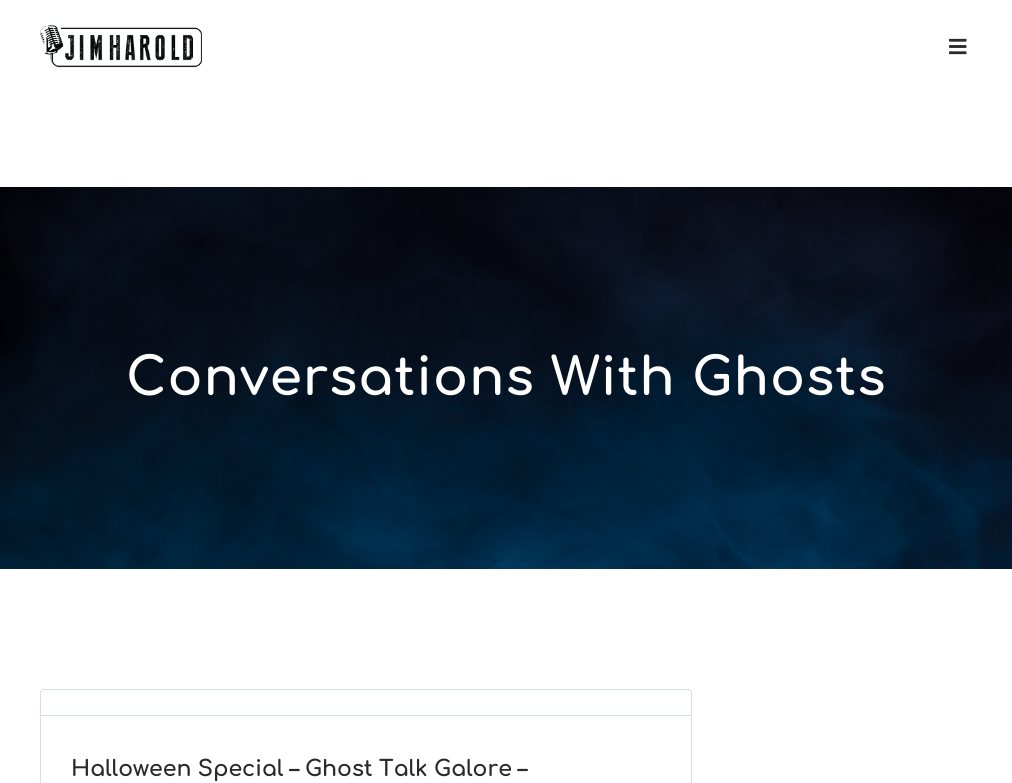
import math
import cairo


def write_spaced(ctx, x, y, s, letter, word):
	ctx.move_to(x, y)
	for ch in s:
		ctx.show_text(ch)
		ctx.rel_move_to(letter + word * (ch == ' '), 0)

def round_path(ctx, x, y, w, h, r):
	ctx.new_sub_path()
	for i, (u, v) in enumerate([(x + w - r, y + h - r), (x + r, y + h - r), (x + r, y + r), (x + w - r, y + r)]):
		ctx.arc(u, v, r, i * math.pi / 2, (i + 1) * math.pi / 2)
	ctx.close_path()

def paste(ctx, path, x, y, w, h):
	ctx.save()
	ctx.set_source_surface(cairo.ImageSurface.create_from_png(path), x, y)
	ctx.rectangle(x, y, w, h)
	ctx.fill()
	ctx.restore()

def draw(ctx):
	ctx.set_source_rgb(1, 1, 1)
	ctx.paint()
	paste(ctx, 'media/1.png', 40, 25, 162, 43)
	paste(ctx, 'media/2.png', 949, 38, 18, 17)
	paste(ctx, 'media/3.png', 0, 187, 1012, 382)
	ctx.select_font_face('Comfortaa', cairo.FONT_SLANT_NORMAL, cairo.FONT_WEIGHT_BOLD)
	ctx.set_font_size(52)
	ctx.set_source_rgb(1, 1, 1)
	write_spaced(ctx, 126, 395, 'Conversations With Ghosts', 1, 0)
	round_path(ctx, 40.5, 689.5, 651, 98, 3.5)
	ctx.set_source_rgb(0.827, 0.867, 0.925)
	ctx.set_line_width(1)
	ctx.stroke()
	ctx.rectangle(41, 715, 650, 1)
	ctx.fill()
	ctx.set_font_size(22)
	ctx.set_source_rgb(0.165, 0.165, 0.165)
	ctx.move_to(71, 776)
	ctx.show_text('Halloween Special – Ghost Talk Galore –')


surface = cairo.ImageSurface(cairo.FORMAT_RGB24, 1012, 783)
ctx = cairo.Context(surface)
options = cairo.FontOptions()
options.set_hint_metrics(cairo.HINT_METRICS_OFF)
options.set_hint_style(cairo.HINT_STYLE_NONE)
ctx.set_font_options(options)
ctx.set_miter_limit(4)
draw(ctx)
surface.write_to_png('image.png')
